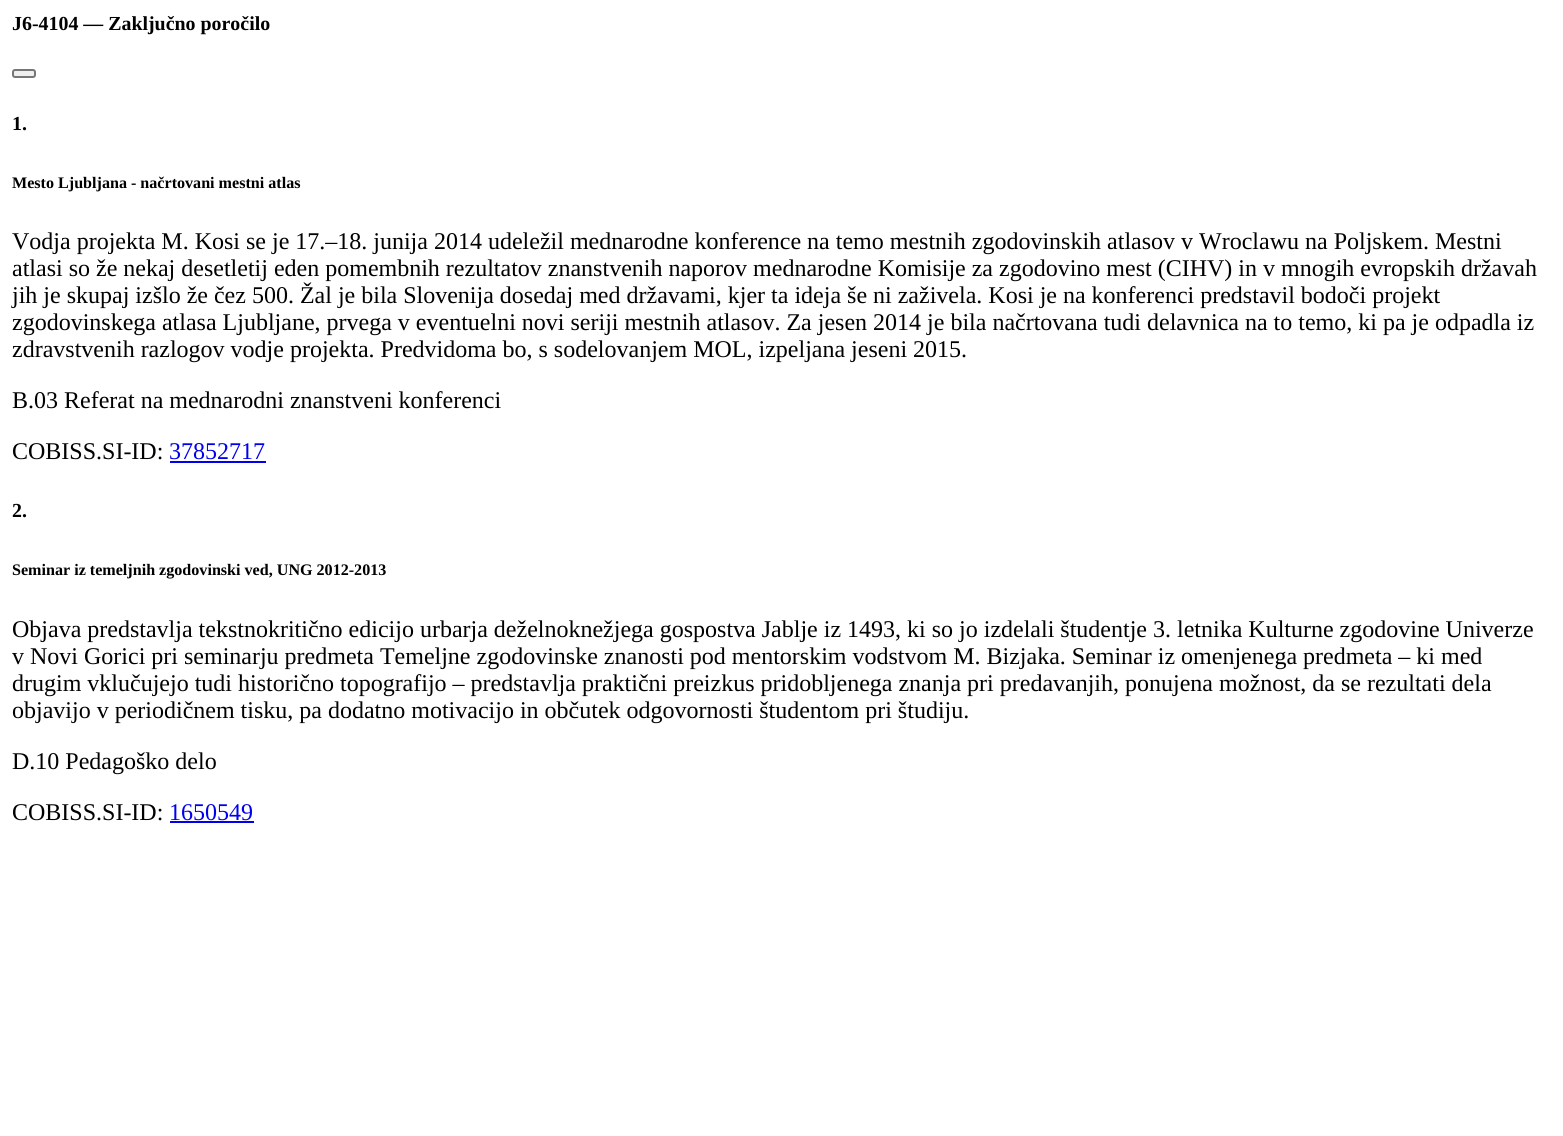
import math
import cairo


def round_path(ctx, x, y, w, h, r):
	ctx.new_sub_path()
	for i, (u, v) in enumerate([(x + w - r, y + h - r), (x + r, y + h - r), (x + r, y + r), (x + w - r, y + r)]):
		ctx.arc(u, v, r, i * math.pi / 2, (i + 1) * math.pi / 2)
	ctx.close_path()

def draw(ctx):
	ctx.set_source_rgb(1, 1, 1)
	ctx.paint()
	ctx.select_font_face('Liberation Serif', cairo.FONT_SLANT_NORMAL, cairo.FONT_WEIGHT_BOLD)
	ctx.set_font_size(19.9)
	ctx.set_source_rgb(0, 0, 0)
	ctx.move_to(12, 30)
	ctx.show_text('J6-4104 — Zaključno poročilo')
	ctx.set_source_rgb(0.937, 0.937, 0.937)
	round_path(ctx, 13, 70, 22, 7, 2)
	ctx.fill_preserve()
	ctx.set_source_rgb(0.463, 0.463, 0.463)
	ctx.stroke()
	ctx.set_source_rgb(0, 0, 0)
	ctx.move_to(12, 130)
	ctx.show_text('1.')
	ctx.set_font_size(16.1)
	ctx.move_to(12, 188)
	ctx.show_text('Mesto Ljubljana - načrtovani mestni atlas')
	ctx.select_font_face('Liberation Serif')
	ctx.set_font_size(24)
	for x, y, s in [
		(12, 249, 'Vodja projekta M. Kosi se je 17.–18. junija 2014 udeležil mednarodne konference na temo mestnih zgodovinskih atlasov v Wroclawu na Poljskem. Mestni'),
		(12, 276, 'atlasi so že nekaj desetletij eden pomembnih rezultatov znanstvenih naporov mednarodne Komisije za zgodovino mest (CIHV) in v mnogih evropskih državah'),
		(12, 303, 'jih je skupaj izšlo že čez 500. Žal je bila Slovenija dosedaj med državami, kjer ta ideja še ni zaživela. Kosi je na konferenci predstavil bodoči projekt'),
		(12, 330, 'zgodovinskega atlasa Ljubljane, prvega v eventuelni novi seriji mestnih atlasov. Za jesen 2014 je bila načrtovana tudi delavnica na to temo, ki pa je odpadla iz'),
		(12, 357, 'zdravstvenih razlogov vodje projekta. Predvidoma bo, s sodelovanjem MOL, izpeljana jeseni 2015.'),
		(12, 408, 'B.03 Referat na mednarodni znanstveni konferenci'),
		(12, 459, 'COBISS.SI-ID:'),
	]:
		ctx.move_to(x, y)
		ctx.show_text(s)
	ctx.set_source_rgb(0, 0, 0.933)
	ctx.move_to(169, 459)
	ctx.show_text('37852717')
	ctx.rectangle(170, 461, 96, 2)
	ctx.fill()
	ctx.select_font_face('Liberation Serif', cairo.FONT_SLANT_NORMAL, cairo.FONT_WEIGHT_BOLD)
	ctx.set_font_size(19.9)
	ctx.set_source_rgb(0, 0, 0)
	ctx.move_to(12, 517)
	ctx.show_text('2.')
	ctx.set_font_size(16.1)
	ctx.move_to(12, 575)
	ctx.show_text('Seminar iz temeljnih zgodovinski ved, UNG 2012-2013')
	ctx.select_font_face('Liberation Serif')
	ctx.set_font_size(24)
	for x, y, s in [
		(12, 637, 'Objava predstavlja tekstnokritično edicijo urbarja deželnoknežjega gospostva Jablje iz 1493, ki so jo izdelali študentje 3. letnika Kulturne zgodovine Univerze'),
		(12, 664, 'v Novi Gorici pri seminarju predmeta Temeljne zgodovinske znanosti pod mentorskim vodstvom M. Bizjaka. Seminar iz omenjenega predmeta – ki med'),
		(12, 691, 'drugim vklučujejo tudi historično topografijo – predstavlja praktični preizkus pridobljenega znanja pri predavanjih, ponujena možnost, da se rezultati dela'),
		(12, 718, 'objavijo v periodičnem tisku, pa dodatno motivacijo in občutek odgovornosti študentom pri študiju.'),
		(12, 769, 'D.10 Pedagoško delo'),
		(12, 820, 'COBISS.SI-ID:'),
	]:
		ctx.move_to(x, y)
		ctx.show_text(s)
	ctx.set_source_rgb(0, 0, 0.933)
	ctx.move_to(169, 820)
	ctx.show_text('1650549')
	ctx.rectangle(170, 821, 84, 2)
	ctx.fill()


surface = cairo.ImageSurface(cairo.FORMAT_RGB24, 1563, 1136)
ctx = cairo.Context(surface)
options = cairo.FontOptions()
options.set_hint_metrics(cairo.HINT_METRICS_OFF)
options.set_hint_style(cairo.HINT_STYLE_NONE)
ctx.set_font_options(options)
ctx.set_miter_limit(4)
draw(ctx)
surface.write_to_png('image.png')
